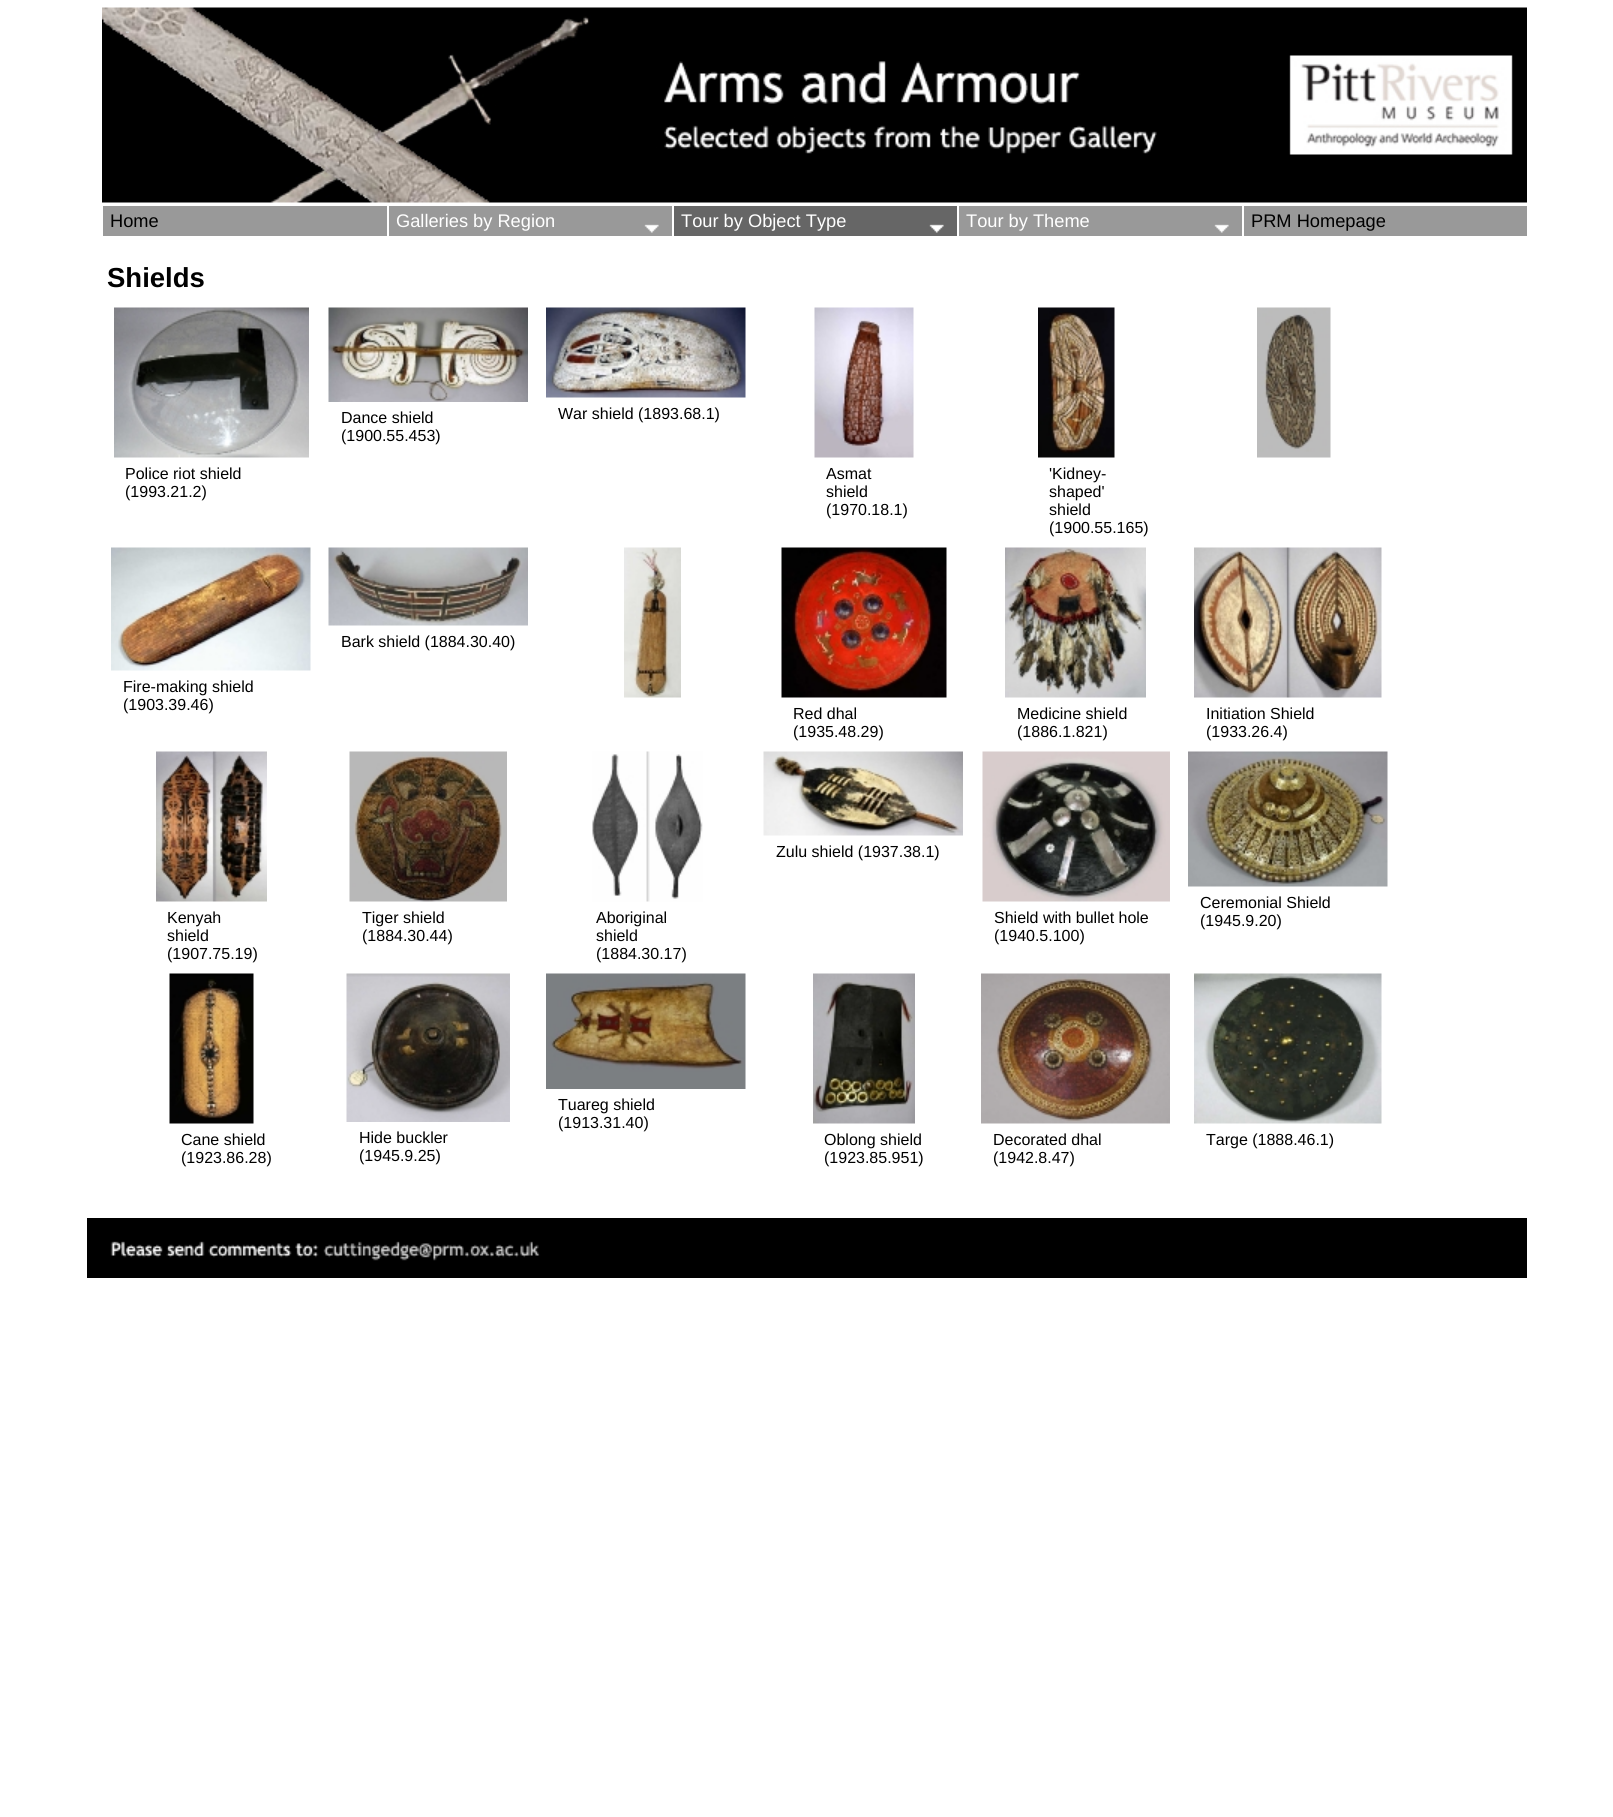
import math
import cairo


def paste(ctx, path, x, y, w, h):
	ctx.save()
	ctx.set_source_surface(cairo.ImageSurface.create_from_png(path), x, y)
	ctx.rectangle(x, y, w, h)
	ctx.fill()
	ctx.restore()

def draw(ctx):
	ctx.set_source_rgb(1, 1, 1)
	ctx.paint()
	paste(ctx, 'media/1.png', 102, 7, 1425, 196)
	paste(ctx, 'media/2.png', 126, 31, 3, 2)
	ctx.set_source_rgb(0.6, 0.6, 0.6)
	ctx.rectangle(103, 206, 284, 30)
	ctx.fill()
	ctx.select_font_face('Liberation Sans')
	ctx.set_font_size(18.25)
	ctx.set_source_rgb(0, 0, 0)
	ctx.move_to(110, 227)
	ctx.show_text('Home')
	ctx.set_source_rgb(0.6, 0.6, 0.6)
	ctx.rectangle(389, 206, 283, 30)
	ctx.fill()
	ctx.set_source_rgb(1, 1, 1)
	ctx.move_to(396, 227)
	ctx.show_text('Galleries by Region')
	paste(ctx, 'media/3.png', 644, 224, 15, 9)
	ctx.set_source_rgb(0.4, 0.4, 0.4)
	ctx.rectangle(674, 206, 283, 30)
	ctx.fill()
	ctx.set_source_rgb(1, 1, 1)
	ctx.move_to(681, 227)
	ctx.show_text('Tour by Object Type')
	paste(ctx, 'media/4.png', 929, 224, 15, 9)
	ctx.set_source_rgb(0.6, 0.6, 0.6)
	ctx.rectangle(959, 206, 283, 30)
	ctx.fill()
	ctx.set_source_rgb(1, 1, 1)
	ctx.move_to(966, 227)
	ctx.show_text('Tour by Theme')
	paste(ctx, 'media/5.png', 1214, 224, 15, 9)
	ctx.set_source_rgb(0.6, 0.6, 0.6)
	ctx.rectangle(1244, 206, 283, 30)
	ctx.fill()
	ctx.set_source_rgb(0, 0, 0)
	ctx.move_to(1251, 227)
	ctx.show_text('PRM Homepage')
	ctx.select_font_face('Liberation Sans', cairo.FONT_SLANT_NORMAL, cairo.FONT_WEIGHT_BOLD)
	ctx.set_font_size(27.5)
	ctx.move_to(107, 287)
	ctx.show_text('Shields')
	paste(ctx, 'media/6.png', 328, 307, 200, 95)
	ctx.select_font_face('Liberation Sans')
	ctx.set_font_size(16)
	ctx.move_to(341, 423)
	ctx.show_text('Dance shield')
	ctx.move_to(341, 441)
	ctx.show_text('(1900.55.453)')
	paste(ctx, 'media/7.png', 546, 307, 200, 91)
	ctx.move_to(558, 419)
	ctx.show_text('War shield (1893.68.1)')
	paste(ctx, 'media/8.png', 1257, 307, 74, 151)
	paste(ctx, 'media/9.png', 114, 307, 195, 151)
	ctx.move_to(125, 479)
	ctx.show_text('Police riot shield')
	ctx.move_to(125, 497)
	ctx.show_text('(1993.21.2)')
	paste(ctx, 'media/10.png', 814, 307, 100, 151)
	for x, y, s in [
		(826, 479, 'Asmat'),
		(826, 497, 'shield'),
		(826, 515, '(1970.18.1)'),
	]:
		ctx.move_to(x, y)
		ctx.show_text(s)
	paste(ctx, 'media/11.png', 1038, 307, 77, 151)
	for x, y, s in [
		(1049, 479, '\'Kidney-'),
		(1049, 497, 'shaped\''),
		(1049, 515, 'shield'),
		(1049, 533, '(1900.55.165)'),
	]:
		ctx.move_to(x, y)
		ctx.show_text(s)
	paste(ctx, 'media/12.png', 328, 547, 200, 79)
	ctx.move_to(341, 647)
	ctx.show_text('Bark shield (1884.30.40)')
	paste(ctx, 'media/13.png', 624, 547, 57, 151)
	paste(ctx, 'media/14.png', 111, 547, 200, 124)
	ctx.move_to(123, 692)
	ctx.show_text('Fire-making shield')
	ctx.move_to(123, 710)
	ctx.show_text('(1903.39.46)')
	paste(ctx, 'media/15.png', 781, 547, 166, 151)
	ctx.move_to(793, 719)
	ctx.show_text('Red dhal')
	ctx.move_to(793, 737)
	ctx.show_text('(1935.48.29)')
	paste(ctx, 'media/16.png', 1005, 547, 141, 151)
	ctx.move_to(1017, 719)
	ctx.show_text('Medicine shield')
	ctx.move_to(1017, 737)
	ctx.show_text('(1886.1.821)')
	paste(ctx, 'media/17.png', 1194, 547, 188, 151)
	ctx.move_to(1206, 719)
	ctx.show_text('Initiation Shield')
	ctx.move_to(1206, 737)
	ctx.show_text('(1933.26.4)')
	paste(ctx, 'media/18.png', 763, 751, 200, 85)
	ctx.move_to(776, 857)
	ctx.show_text('Zulu shield (1937.38.1)')
	paste(ctx, 'media/19.png', 156, 751, 111, 151)
	for x, y, s in [
		(167, 923, 'Kenyah'),
		(167, 941, 'shield'),
		(167, 959, '(1907.75.19)'),
	]:
		ctx.move_to(x, y)
		ctx.show_text(s)
	paste(ctx, 'media/20.png', 349, 751, 158, 151)
	ctx.move_to(362, 923)
	ctx.show_text('Tiger shield')
	ctx.move_to(362, 941)
	ctx.show_text('(1884.30.44)')
	paste(ctx, 'media/21.png', 592, 751, 111, 151)
	for x, y, s in [
		(596, 923, 'Aboriginal'),
		(596, 941, 'shield'),
		(596, 959, '(1884.30.17)'),
	]:
		ctx.move_to(x, y)
		ctx.show_text(s)
	paste(ctx, 'media/22.png', 982, 751, 188, 151)
	ctx.move_to(994, 923)
	ctx.show_text('Shield with bullet hole')
	ctx.move_to(994, 941)
	ctx.show_text('(1940.5.100)')
	paste(ctx, 'media/23.png', 1188, 751, 200, 136)
	ctx.move_to(1200, 908)
	ctx.show_text('Ceremonial Shield')
	ctx.move_to(1200, 926)
	ctx.show_text('(1945.9.20)')
	paste(ctx, 'media/24.png', 546, 973, 200, 116)
	ctx.move_to(558, 1110)
	ctx.show_text('Tuareg shield')
	ctx.move_to(558, 1128)
	ctx.show_text('(1913.31.40)')
	paste(ctx, 'media/25.png', 169, 973, 85, 151)
	ctx.move_to(181, 1145)
	ctx.show_text('Cane shield')
	ctx.move_to(181, 1163)
	ctx.show_text('(1923.86.28)')
	paste(ctx, 'media/26.png', 346, 973, 164, 149)
	ctx.move_to(359, 1143)
	ctx.show_text('Hide buckler')
	ctx.move_to(359, 1161)
	ctx.show_text('(1945.9.25)')
	paste(ctx, 'media/27.png', 813, 973, 102, 151)
	ctx.move_to(824, 1145)
	ctx.show_text('Oblong shield')
	ctx.move_to(824, 1163)
	ctx.show_text('(1923.85.951)')
	paste(ctx, 'media/28.png', 981, 973, 189, 151)
	ctx.move_to(993, 1145)
	ctx.show_text('Decorated dhal')
	ctx.move_to(993, 1163)
	ctx.show_text('(1942.8.47)')
	paste(ctx, 'media/29.png', 1194, 973, 188, 151)
	ctx.move_to(1206, 1145)
	ctx.show_text('Targe (1888.46.1)')
	paste(ctx, 'media/30.png', 87, 1218, 1440, 60)


surface = cairo.ImageSurface(cairo.FORMAT_RGB24, 1613, 1817)
ctx = cairo.Context(surface)
options = cairo.FontOptions()
options.set_hint_metrics(cairo.HINT_METRICS_OFF)
options.set_hint_style(cairo.HINT_STYLE_NONE)
ctx.set_font_options(options)
ctx.set_miter_limit(4)
draw(ctx)
surface.write_to_png('image.png')
